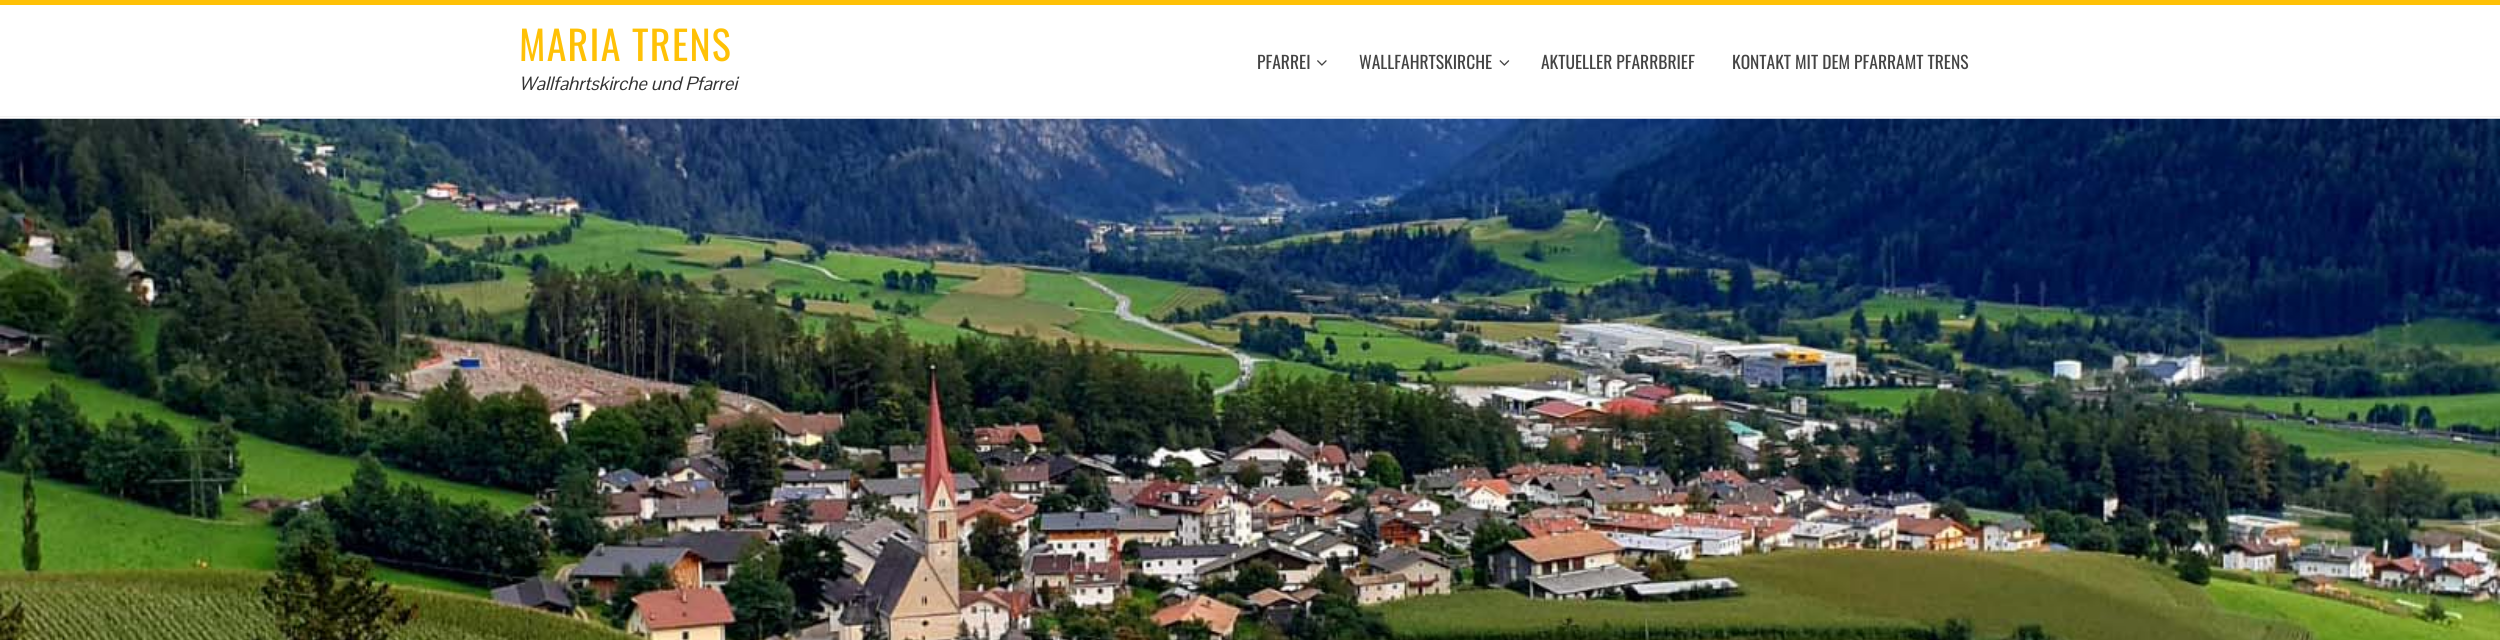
import math
import cairo


def write_spaced(ctx, x, y, s, letter, word):
	ctx.move_to(x, y)
	for ch in s:
		ctx.show_text(ch)
		ctx.rel_move_to(letter + word * (ch == ' '), 0)

def paste(ctx, path, x, y, w, h):
	ctx.save()
	ctx.set_source_surface(cairo.ImageSurface.create_from_png(path), x, y)
	ctx.rectangle(x, y, w, h)
	ctx.fill()
	ctx.restore()

def draw(ctx):
	ctx.set_source_rgb(1, 1, 1)
	ctx.paint()
	ctx.set_source_rgb(1, 0.757, 0.027)
	ctx.rectangle(0, 0, 2500, 5)
	ctx.fill()
	ctx.set_source_rgb(0.945, 0.945, 0.945)
	ctx.rectangle(0, 116, 2500, 1)
	ctx.fill()
	ctx.select_font_face('Oswald')
	ctx.set_font_size(40)
	ctx.set_source_rgb(1, 0.757, 0.027)
	write_spaced(ctx, 519, 61, 'MARIA TRENS', 1.25, 0)
	ctx.select_font_face('Pontano Sans', cairo.FONT_SLANT_ITALIC)
	ctx.set_font_size(18.75)
	ctx.set_source_rgb(0.2, 0.2, 0.2)
	ctx.move_to(519, 90)
	ctx.show_text('Wallfahrtskirche und Pfarrei')
	ctx.select_font_face('Oswald')
	ctx.set_font_size(17.5)
	ctx.set_source_rgb(0.267, 0.267, 0.267)
	ctx.move_to(1257, 69)
	ctx.show_text('PFARREI')
	paste(ctx, 'media/1.png', 1317, 60, 10, 6)
	ctx.move_to(1359, 69)
	ctx.show_text('WALLFAHRTSKIRCHE')
	paste(ctx, 'media/2.png', 1499, 60, 11, 6)
	ctx.move_to(1541, 69)
	ctx.show_text('AKTUELLER PFARRBRIEF')
	ctx.move_to(1732, 69)
	ctx.show_text('KONTAKT MIT DEM PFARRAMT TRENS')
	paste(ctx, 'media/3.png', 0, 118, 2500, 522)


surface = cairo.ImageSurface(cairo.FORMAT_RGB24, 2500, 640)
ctx = cairo.Context(surface)
options = cairo.FontOptions()
options.set_hint_metrics(cairo.HINT_METRICS_OFF)
options.set_hint_style(cairo.HINT_STYLE_NONE)
ctx.set_font_options(options)
ctx.set_miter_limit(4)
draw(ctx)
surface.write_to_png('image.png')
